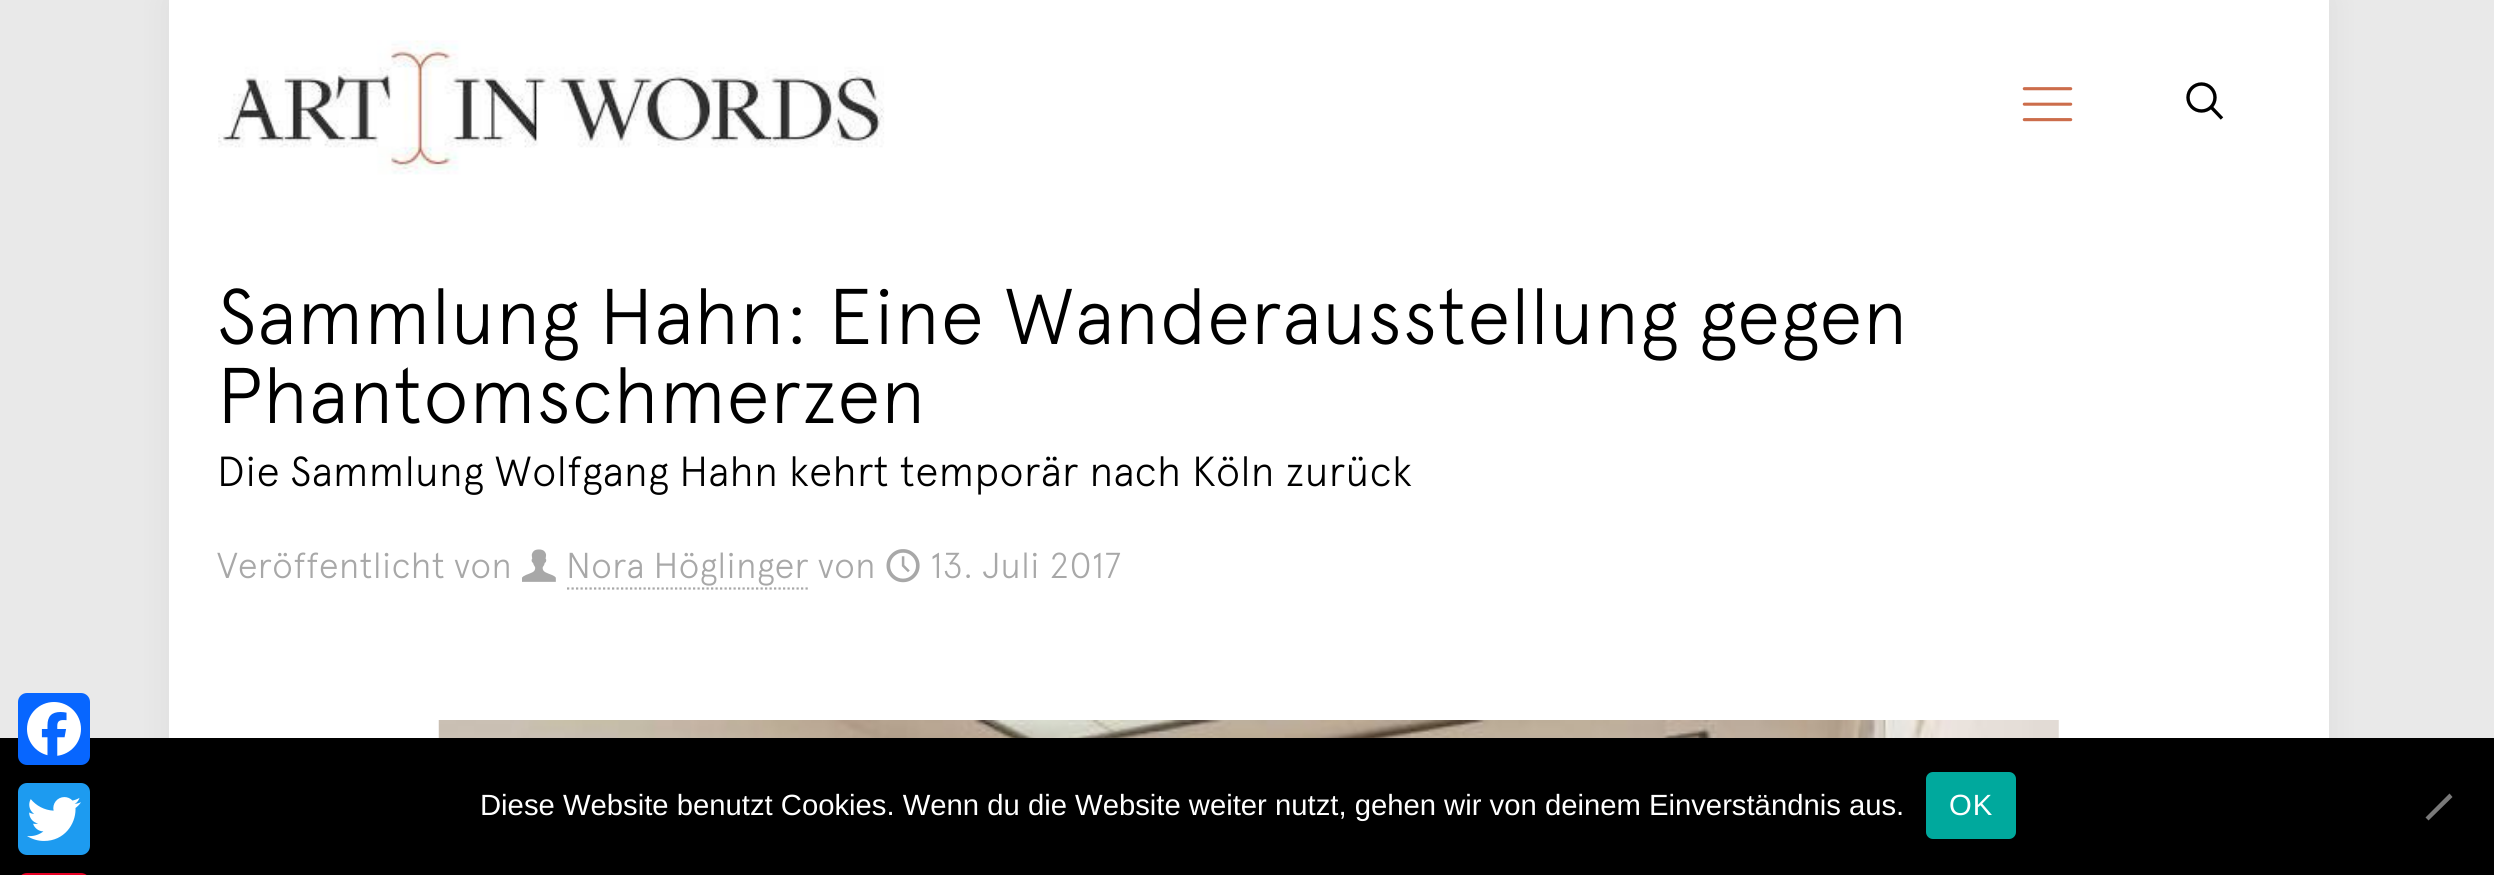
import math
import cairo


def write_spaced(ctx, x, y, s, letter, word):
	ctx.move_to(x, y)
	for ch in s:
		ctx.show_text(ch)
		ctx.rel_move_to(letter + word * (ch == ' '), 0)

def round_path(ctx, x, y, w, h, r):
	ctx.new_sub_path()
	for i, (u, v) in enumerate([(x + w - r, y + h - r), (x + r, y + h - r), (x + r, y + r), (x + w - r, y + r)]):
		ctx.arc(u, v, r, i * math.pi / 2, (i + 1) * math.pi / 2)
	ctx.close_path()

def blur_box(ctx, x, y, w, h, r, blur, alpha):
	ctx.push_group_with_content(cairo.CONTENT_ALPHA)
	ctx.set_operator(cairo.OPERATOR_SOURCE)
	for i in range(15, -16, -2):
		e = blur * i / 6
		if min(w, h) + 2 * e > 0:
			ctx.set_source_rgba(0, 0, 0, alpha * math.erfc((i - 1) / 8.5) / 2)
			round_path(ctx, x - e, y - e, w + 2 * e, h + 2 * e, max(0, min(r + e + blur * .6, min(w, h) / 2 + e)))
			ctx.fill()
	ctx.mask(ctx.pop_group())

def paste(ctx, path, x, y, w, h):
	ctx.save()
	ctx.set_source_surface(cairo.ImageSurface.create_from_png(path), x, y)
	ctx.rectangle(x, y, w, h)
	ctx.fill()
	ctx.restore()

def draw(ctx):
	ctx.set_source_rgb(0.914, 0.914, 0.914)
	ctx.paint()
	ctx.set_source_rgb(0, 0, 0)
	blur_box(ctx, 169, 0, 2160, 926, 0, 17, 0.06)
	ctx.set_source_rgb(1, 1, 1)
	ctx.rectangle(169, 0, 2160, 738)
	ctx.fill()
	paste(ctx, 'media/1.png', 218, 40, 667, 135)
	paste(ctx, 'media/2.png', 2022, 87, 51, 35)
	ctx.arc(2201.5, 97.5, 13.5, 0, 2 * math.pi)
	ctx.set_source_rgb(0, 0, 0)
	ctx.set_line_width(3.4)
	ctx.stroke()
	ctx.new_path()
	ctx.move_to(2211, 107)
	ctx.line_to(2222, 118.5)
	ctx.stroke()
	ctx.select_font_face('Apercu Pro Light')
	ctx.set_font_size(78.75)
	ctx.move_to(217, 344)
	ctx.show_text('Sammlung Hahn: Eine Wanderausstellung gegen')
	ctx.move_to(217, 423)
	ctx.show_text('Phantomschmerzen')
	ctx.set_font_size(42)
	ctx.move_to(217, 486)
	ctx.show_text('Die Sammlung Wolfgang Hahn kehrt temporär nach Köln zurück')
	ctx.set_font_size(36)
	ctx.set_source_rgb(0.659, 0.659, 0.659)
	ctx.move_to(217, 578)
	ctx.show_text('Veröffentlicht von')
	paste(ctx, 'media/3.png', 522, 549, 34, 33)
	ctx.move_to(566, 578)
	ctx.show_text('Nora Höglinger von')
	ctx.new_path()
	ctx.move_to(567, 588.5)
	ctx.line_to(810, 588.5)
	ctx.set_line_width(2.2)
	ctx.set_dash([2.25, 2.25])
	ctx.stroke()
	paste(ctx, 'media/4.png', 886, 549, 34, 34)
	ctx.move_to(930, 578)
	ctx.show_text('13. Juli 2017')
	paste(ctx, 'media/5.png', 438, 720, 1621, 18)
	ctx.set_source_rgb(0, 0, 0)
	ctx.rectangle(0, 738, 2494, 137)
	ctx.fill()
	ctx.set_source_rgb(0.031, 0.4, 1)
	round_path(ctx, 18, 693, 72, 72, 9)
	ctx.fill()
	paste(ctx, 'media/6.png', 27, 702, 54, 54)
	ctx.set_source_rgb(0.114, 0.608, 0.941)
	round_path(ctx, 18, 783, 72, 72, 9)
	ctx.fill()
	paste(ctx, 'media/7.png', 27, 797, 54, 44)
	ctx.set_source_rgb(0.902, 0, 0.137)
	round_path(ctx, 18, 873, 72, 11, 9)
	ctx.fill()
	ctx.select_font_face('Liberation Sans')
	ctx.set_font_size(29.25)
	ctx.set_source_rgb(1, 1, 1)
	ctx.move_to(480, 815)
	ctx.show_text('Diese Website benutzt Cookies. Wenn du die Website weiter nutzt, gehen wir von deinem Einverständnis aus.')
	ctx.set_source_rgb(0, 0.663, 0.616)
	round_path(ctx, 1926, 772, 90, 67, 7)
	ctx.fill()
	ctx.set_source_rgb(1, 1, 1)
	write_spaced(ctx, 1949, 815, 'OK', 1, 0)
	ctx.set_source_rgb(0.475, 0.475, 0.475)
	ctx.new_path()
	ctx.move_to(2449.5, 793.5)
	ctx.line_to(2452.5, 797)
	ctx.line_to(2428.5, 820.5)
	ctx.line_to(2425.5, 817.5)
	ctx.close_path()
	ctx.fill()


surface = cairo.ImageSurface(cairo.FORMAT_RGB24, 2494, 875)
ctx = cairo.Context(surface)
options = cairo.FontOptions()
options.set_hint_metrics(cairo.HINT_METRICS_OFF)
options.set_hint_style(cairo.HINT_STYLE_NONE)
ctx.set_font_options(options)
ctx.set_miter_limit(4)
draw(ctx)
surface.write_to_png('image.png')
